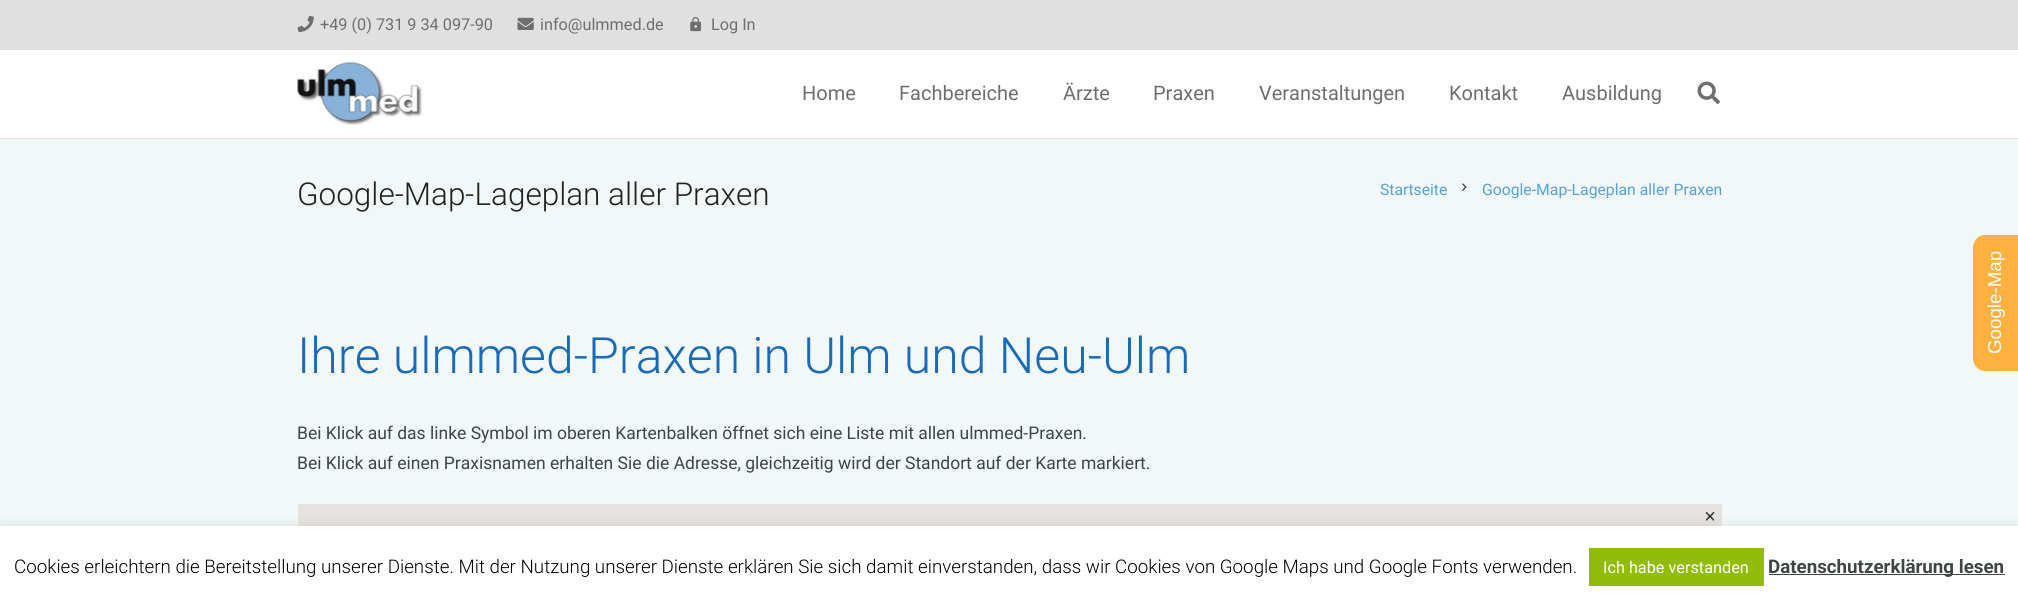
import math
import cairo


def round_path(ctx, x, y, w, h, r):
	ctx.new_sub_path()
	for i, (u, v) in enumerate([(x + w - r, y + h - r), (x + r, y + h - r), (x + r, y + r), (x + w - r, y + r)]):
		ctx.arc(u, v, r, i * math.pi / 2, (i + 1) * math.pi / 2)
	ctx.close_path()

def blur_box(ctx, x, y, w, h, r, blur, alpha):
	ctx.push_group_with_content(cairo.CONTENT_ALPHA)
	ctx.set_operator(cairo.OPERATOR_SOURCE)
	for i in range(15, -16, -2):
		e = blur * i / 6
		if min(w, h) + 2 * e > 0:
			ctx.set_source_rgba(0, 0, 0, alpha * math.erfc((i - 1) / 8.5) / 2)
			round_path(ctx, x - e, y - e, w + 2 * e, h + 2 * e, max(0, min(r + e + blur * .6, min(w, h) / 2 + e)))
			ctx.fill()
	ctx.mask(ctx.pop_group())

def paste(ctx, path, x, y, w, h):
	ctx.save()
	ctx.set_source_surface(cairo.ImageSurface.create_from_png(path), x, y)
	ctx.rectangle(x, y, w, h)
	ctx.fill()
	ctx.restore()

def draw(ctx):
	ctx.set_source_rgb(0.949, 0.969, 0.969)
	ctx.paint()
	ctx.set_source_rgb(0.878, 0.878, 0.878)
	ctx.rectangle(0, 0, 2018, 50)
	ctx.fill()
	paste(ctx, 'media/1.png', 297, 15, 17, 17)
	ctx.select_font_face('Roboto')
	ctx.set_font_size(16.25)
	ctx.set_source_rgb(0.431, 0.431, 0.431)
	ctx.move_to(320, 30)
	ctx.show_text('+49 (0) 731 9 34 097-90')
	paste(ctx, 'media/2.png', 517, 17, 17, 13)
	ctx.move_to(540, 30)
	ctx.show_text('info@ulmmed.de')
	paste(ctx, 'media/3.png', 690, 16, 12, 16)
	ctx.move_to(711, 30)
	ctx.show_text('Log In')
	ctx.set_source_rgb(0.875, 0.89, 0.89)
	ctx.new_path()
	ctx.move_to(0, 138)
	ctx.line_to(0, 139)
	ctx.line_to(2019, 139)
	ctx.line_to(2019, 51)
	ctx.line_to(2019, 138)
	ctx.close_path()
	ctx.fill()
	ctx.set_source_rgb(1, 1, 1)
	ctx.rectangle(0, 50, 2018, 88)
	ctx.fill()
	paste(ctx, 'media/4.png', 297, 62, 126, 63)
	ctx.set_font_size(20)
	ctx.set_source_rgb(0.431, 0.431, 0.431)
	for x, y, s in [
		(802, 100, 'Home'),
		(899, 100, 'Fachbereiche'),
		(1063, 100, 'Ärzte'),
		(1153, 100, 'Praxen'),
		(1259, 100, 'Veranstaltungen'),
		(1449, 100, 'Kontakt'),
		(1562, 100, 'Ausbildung'),
	]:
		ctx.move_to(x, y)
		ctx.show_text(s)
	paste(ctx, 'media/5.png', 1697, 81, 23, 23)
	ctx.select_font_face('Roboto Light')
	ctx.set_font_size(31.5)
	ctx.set_source_rgb(0.129, 0.129, 0.129)
	ctx.move_to(297, 205)
	ctx.show_text('Google-Map-Lageplan aller Praxen')
	ctx.select_font_face('Roboto')
	ctx.set_font_size(15.75)
	ctx.set_source_rgb(0.337, 0.631, 0.875)
	ctx.move_to(1380, 195)
	ctx.show_text('Startseite')
	paste(ctx, 'media/6.png', 1462, 183, 5, 8)
	ctx.move_to(1482, 195)
	ctx.show_text('Google-Map-Lageplan aller Praxen')
	ctx.select_font_face('Roboto Light')
	ctx.set_font_size(50)
	ctx.set_source_rgb(0.102, 0.416, 0.729)
	ctx.move_to(297, 373)
	ctx.show_text('Ihre ulmmed-Praxen in Ulm und Neu-Ulm')
	ctx.select_font_face('Roboto')
	ctx.set_font_size(17.5)
	ctx.set_source_rgb(0.247, 0.271, 0.267)
	ctx.move_to(297, 439)
	ctx.show_text('Bei Klick auf das linke Symbol im oberen Kartenbalken öffnet sich eine Liste mit allen ulmmed-Praxen.')
	ctx.move_to(297, 469)
	ctx.show_text('Bei Klick auf einen Praxisnamen erhalten Sie die Adresse, gleichzeitig wird der Standort auf der Karte markiert.')
	paste(ctx, 'media/7.png', 298, 504, 1424, 22)
	ctx.set_source_rgb(1, 0.694, 0.247)
	ctx.new_path()
	ctx.move_to(1973, 358)
	ctx.line_to(1973, 248)
	ctx.curve_to(1973, 241, 1978, 235, 1985, 235)
	ctx.line_to(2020, 235)
	ctx.line_to(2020, 371)
	ctx.line_to(1985, 371)
	ctx.curve_to(1978, 371, 1973, 365, 1973, 358)
	ctx.close_path()
	ctx.fill()
	ctx.select_font_face('Liberation Sans')
	ctx.set_font_size(18.75)
	ctx.set_source_rgb(1, 1, 1)
	ctx.save()
	ctx.translate(2001, 354)
	ctx.rotate(-90 * math.pi / 180)
	ctx.move_to(0, 0)
	ctx.show_text('Google-Map')
	ctx.restore()
	ctx.set_source_rgb(0.675, 0.671, 0.671)
	blur_box(ctx, 0, 525, 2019, 75, 0, 6, 0.3)
	ctx.set_source_rgb(1, 1, 1)
	ctx.rectangle(0, 526, 2018, 75)
	ctx.fill()
	ctx.select_font_face('Roboto Light')
	ctx.set_source_rgb(0, 0, 0)
	ctx.move_to(14, 573)
	ctx.show_text('Cookies erleichtern die Bereitstellung unserer Dienste. Mit der Nutzung unserer Dienste erklären Sie sich damit einverstanden, dass wir Cookies von Google Maps und Google Fonts verwenden.')
	ctx.set_source_rgb(0.569, 0.741, 0.035)
	ctx.rectangle(1589, 548, 175, 38)
	ctx.fill()
	ctx.select_font_face('Roboto')
	ctx.set_font_size(16.25)
	ctx.set_source_rgb(1, 1, 1)
	ctx.move_to(1603, 573)
	ctx.show_text('Ich habe verstanden')
	ctx.set_source_rgb(0.267, 0.267, 0.267)
	ctx.rectangle(1769, 574, 236, 1)
	ctx.fill()
	ctx.select_font_face('Roboto', cairo.FONT_SLANT_NORMAL, cairo.FONT_WEIGHT_BOLD)
	ctx.set_font_size(18.75)
	ctx.set_source_rgb(0.247, 0.271, 0.267)
	ctx.move_to(1768, 573)
	ctx.show_text('Datenschutzerklärung lesen')


surface = cairo.ImageSurface(cairo.FORMAT_RGB24, 2018, 601)
ctx = cairo.Context(surface)
options = cairo.FontOptions()
options.set_hint_metrics(cairo.HINT_METRICS_OFF)
options.set_hint_style(cairo.HINT_STYLE_NONE)
ctx.set_font_options(options)
ctx.set_miter_limit(4)
draw(ctx)
surface.write_to_png('image.png')
